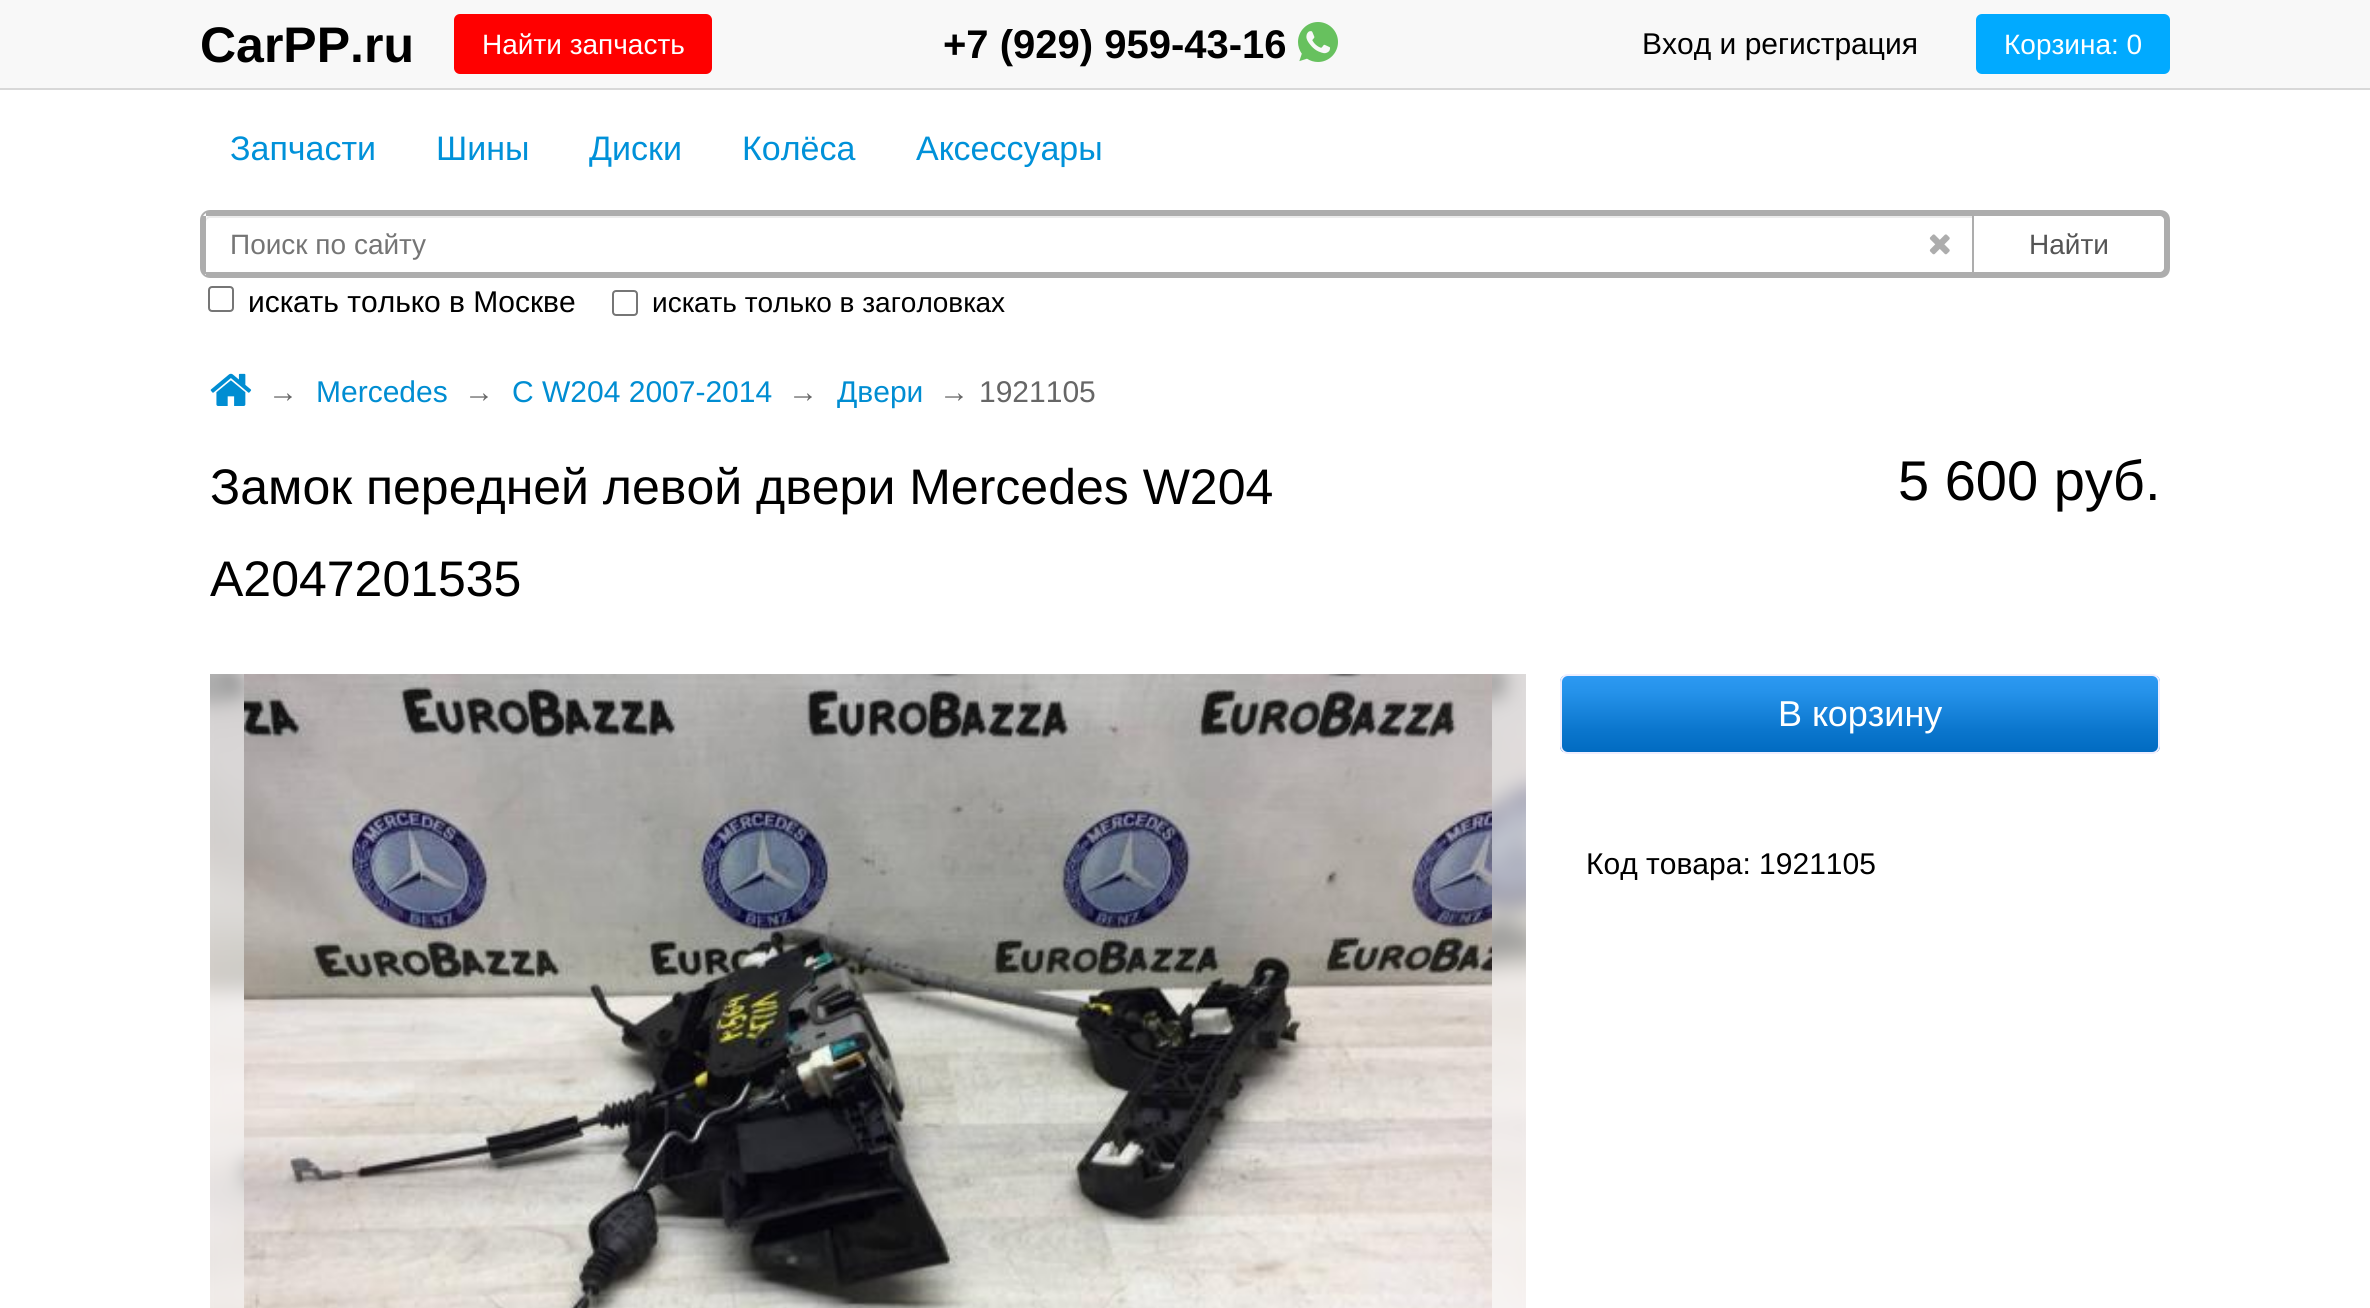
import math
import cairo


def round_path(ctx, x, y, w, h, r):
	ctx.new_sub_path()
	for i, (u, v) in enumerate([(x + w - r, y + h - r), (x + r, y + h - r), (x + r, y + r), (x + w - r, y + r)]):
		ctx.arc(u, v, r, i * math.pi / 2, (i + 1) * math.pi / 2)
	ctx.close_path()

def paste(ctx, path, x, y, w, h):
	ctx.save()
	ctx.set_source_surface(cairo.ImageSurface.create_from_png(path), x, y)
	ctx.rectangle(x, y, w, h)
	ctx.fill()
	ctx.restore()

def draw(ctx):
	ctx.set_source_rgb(1, 1, 1)
	ctx.paint()
	ctx.set_source_rgb(0.969, 0.969, 0.969)
	ctx.rectangle(0, 0, 2370, 88)
	ctx.fill()
	ctx.set_source_rgb(0.847, 0.847, 0.847)
	ctx.rectangle(0, 88, 2370, 2)
	ctx.fill()
	ctx.select_font_face('Liberation Sans', cairo.FONT_SLANT_NORMAL, cairo.FONT_WEIGHT_BOLD)
	ctx.set_font_size(50)
	ctx.set_source_rgb(0, 0, 0)
	ctx.move_to(200, 62)
	ctx.show_text('CarPP.ru')
	ctx.set_source_rgb(1, 0, 0)
	round_path(ctx, 454, 14, 258, 60, 6)
	ctx.fill()
	ctx.select_font_face('Liberation Sans')
	ctx.set_font_size(28)
	ctx.set_source_rgb(1, 1, 1)
	ctx.move_to(482, 54)
	ctx.show_text('Найти запчасть')
	ctx.select_font_face('Liberation Sans', cairo.FONT_SLANT_NORMAL, cairo.FONT_WEIGHT_BOLD)
	ctx.set_font_size(40)
	ctx.set_source_rgb(0, 0, 0)
	ctx.move_to(943, 58)
	ctx.show_text('+7 (929) 959-43-16')
	paste(ctx, 'media/1.png', 1298, 22, 40, 40)
	ctx.select_font_face('Liberation Sans')
	ctx.set_font_size(30)
	ctx.move_to(1642, 54)
	ctx.show_text('Вход и регистрация')
	ctx.set_source_rgb(0.004, 0.667, 1)
	round_path(ctx, 1976, 14, 194, 60, 6)
	ctx.fill()
	ctx.set_font_size(28)
	ctx.set_source_rgb(1, 1, 1)
	ctx.move_to(2004, 54)
	ctx.show_text('Корзина: 0')
	ctx.set_font_size(34)
	ctx.set_source_rgb(0, 0.569, 0.851)
	for x, y, s in [
		(230, 160, 'Запчасти'),
		(436, 160, 'Шины'),
		(589, 160, 'Диски'),
		(742, 160, 'Колёса'),
		(916, 160, 'Аксессуары'),
	]:
		ctx.move_to(x, y)
		ctx.show_text(s)
	ctx.set_source_rgb(0.925, 0.925, 0.925)
	ctx.new_path()
	ctx.move_to(210, 218)
	ctx.line_to(1972, 218)
	ctx.line_to(1972, 216)
	ctx.line_to(210, 216)
	ctx.curve_to(206, 216, 206, 219, 206, 222)
	ctx.curve_to(206, 220, 208, 218, 210, 218)
	ctx.close_path()
	ctx.fill()
	ctx.new_path()
	ctx.move_to(210, 211)
	ctx.line_to(1973, 211)
	ctx.line_to(1973, 277)
	ctx.line_to(210, 277)
	ctx.curve_to(205, 277, 201, 273, 201, 268)
	ctx.line_to(201, 220)
	ctx.curve_to(201, 215, 205, 211, 210, 211)
	ctx.close_path()
	ctx.set_source_rgb(0.678, 0.678, 0.678)
	ctx.stroke()
	ctx.rectangle(206, 212, 1768, 4)
	ctx.rectangle(206, 272, 1768, 4)
	ctx.rectangle(202, 216, 4, 58)
	ctx.fill()
	ctx.set_font_size(28)
	ctx.set_source_rgb(0.459, 0.459, 0.459)
	ctx.move_to(230, 254)
	ctx.show_text('Поиск по сайту')
	paste(ctx, 'media/2.png', 1929, 234, 21, 21)
	ctx.set_source_rgb(0.678, 0.678, 0.678)
	ctx.set_fill_rule(cairo.FILL_RULE_EVEN_ODD)
	ctx.new_path()
	ctx.move_to(1974, 210)
	ctx.line_to(2160, 210)
	ctx.curve_to(2166, 210, 2170, 214, 2170, 220)
	ctx.line_to(2170, 268)
	ctx.curve_to(2170, 274, 2166, 278, 2160, 278)
	ctx.line_to(1974, 278)
	ctx.close_path()
	ctx.move_to(1974, 216)
	ctx.line_to(2160, 216)
	ctx.curve_to(2162, 216, 2164, 218, 2164, 220)
	ctx.line_to(2164, 268)
	ctx.curve_to(2164, 270, 2162, 272, 2160, 272)
	ctx.line_to(1974, 272)
	ctx.close_path()
	ctx.fill()
	ctx.set_source_rgb(0.333, 0.333, 0.333)
	ctx.move_to(2029, 254)
	ctx.show_text('Найти')
	round_path(ctx, 209, 287, 24, 24, 3)
	ctx.set_source_rgb(0.463, 0.463, 0.463)
	ctx.stroke()
	ctx.set_font_size(30)
	ctx.set_source_rgb(0, 0, 0)
	ctx.move_to(248, 312)
	ctx.show_text('искать только в Москве')
	round_path(ctx, 613, 291, 24, 24, 3)
	ctx.set_source_rgb(0.463, 0.463, 0.463)
	ctx.stroke()
	ctx.set_font_size(28)
	ctx.set_source_rgb(0, 0, 0)
	ctx.move_to(652, 312)
	ctx.show_text('искать только в заголовках')
	paste(ctx, 'media/3.png', 210, 373, 42, 33)
	ctx.set_font_size(30)
	ctx.set_source_rgb(0.4, 0.4, 0.4)
	ctx.move_to(268, 402)
	ctx.show_text('→')
	ctx.set_source_rgb(0, 0.553, 0.824)
	ctx.move_to(316, 402)
	ctx.show_text('Mercedes')
	ctx.set_source_rgb(0.4, 0.4, 0.4)
	ctx.move_to(464, 402)
	ctx.show_text('→')
	ctx.set_source_rgb(0, 0.553, 0.824)
	ctx.move_to(512, 402)
	ctx.show_text('C W204 2007-2014')
	ctx.set_source_rgb(0.4, 0.4, 0.4)
	ctx.move_to(788, 402)
	ctx.show_text('→')
	ctx.set_source_rgb(0, 0.553, 0.824)
	ctx.move_to(837, 402)
	ctx.show_text('Двери')
	ctx.set_source_rgb(0.4, 0.4, 0.4)
	ctx.move_to(939, 402)
	ctx.show_text('→')
	ctx.move_to(979, 402)
	ctx.show_text('1921105')
	ctx.set_font_size(50)
	ctx.set_source_rgb(0, 0, 0)
	ctx.move_to(210, 504)
	ctx.show_text('Замок передней левой двери Mercedes W204')
	ctx.move_to(210, 596)
	ctx.show_text('A2047201535')
	ctx.set_font_size(56)
	ctx.move_to(1898, 500)
	ctx.show_text('5 600 руб.')
	paste(ctx, 'media/4.png', 210, 674, 1316, 634)
	paste(ctx, 'media/5.png', 244, 674, 1248, 634)
	ctx.save()
	ctx.set_fill_rule(cairo.FILL_RULE_WINDING)
	round_path(ctx, 1560, 674, 600, 80, 8)
	ctx.clip()
	gradient = cairo.LinearGradient(1860, 676, 1860, 752)
	gradient.add_color_stop_rgba(0, 0.173, 0.6, 0.949, 1)
	gradient.add_color_stop_rgba(0.21, 0.145, 0.573, 0.918, 1)
	gradient.add_color_stop_rgba(0.71, 0.043, 0.463, 0.804, 1)
	gradient.add_color_stop_rgba(1, 0.004, 0.42, 0.757, 1)
	ctx.set_source(gradient)
	ctx.rectangle(1560, 676, 600, 76)
	ctx.fill()
	ctx.restore()
	round_path(ctx, 1561, 675, 598, 78, 7)
	ctx.set_source_rgb(0.933, 0.933, 1)
	ctx.stroke()
	ctx.set_font_size(36)
	ctx.set_source_rgb(1, 1, 1)
	ctx.move_to(1778, 726)
	ctx.show_text('В корзину')
	ctx.set_font_size(30)
	ctx.set_source_rgb(0, 0, 0)
	ctx.move_to(1586, 874)
	ctx.show_text('Код товара: 1921105')


surface = cairo.ImageSurface(cairo.FORMAT_RGB24, 2370, 1308)
ctx = cairo.Context(surface)
options = cairo.FontOptions()
options.set_hint_metrics(cairo.HINT_METRICS_OFF)
options.set_hint_style(cairo.HINT_STYLE_NONE)
ctx.set_font_options(options)
ctx.set_miter_limit(4)
draw(ctx)
surface.write_to_png('image.png')
